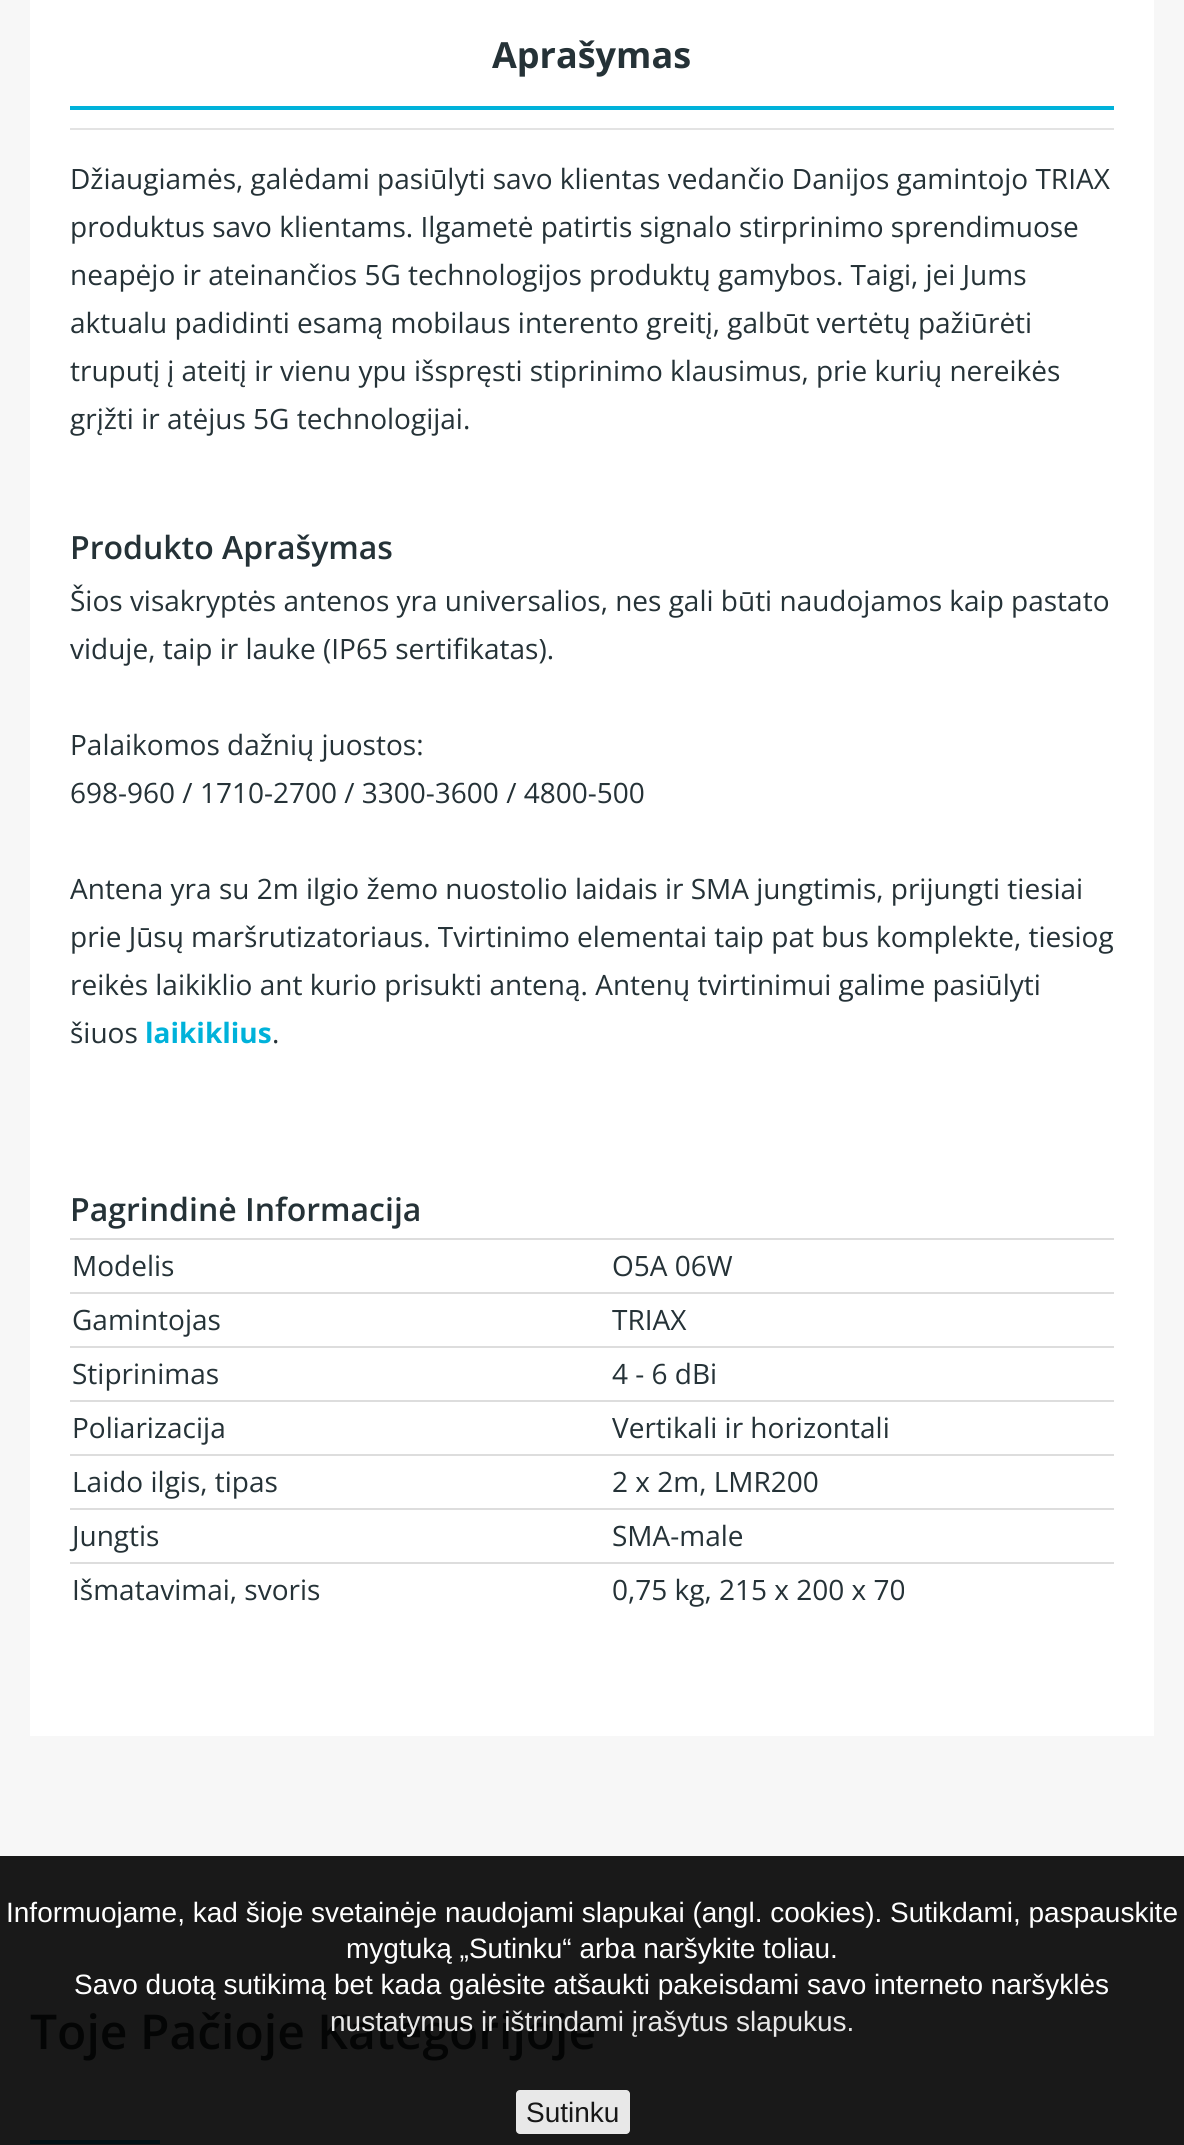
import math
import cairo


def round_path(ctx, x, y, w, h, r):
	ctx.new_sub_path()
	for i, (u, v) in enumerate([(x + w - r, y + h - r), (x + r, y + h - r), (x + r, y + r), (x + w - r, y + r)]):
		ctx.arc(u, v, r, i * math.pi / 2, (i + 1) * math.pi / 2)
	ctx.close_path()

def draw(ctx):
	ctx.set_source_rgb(0.098, 0.098, 0.098)
	ctx.paint()
	ctx.set_source_rgb(0.965, 0.965, 0.965)
	ctx.rectangle(0, 0, 1184, 1856)
	ctx.fill()
	ctx.set_source_rgb(1, 1, 1)
	ctx.rectangle(30, 0, 1124, 1736)
	ctx.fill()
	ctx.set_source_rgb(0.89, 0.89, 0.89)
	ctx.rectangle(70, 128, 1044, 2)
	ctx.fill()
	ctx.select_font_face('Open Sans', cairo.FONT_SLANT_NORMAL, cairo.FONT_WEIGHT_BOLD)
	ctx.set_font_size(36)
	ctx.set_source_rgb(0.145, 0.196, 0.216)
	ctx.move_to(492, 68)
	ctx.show_text('Aprašymas')
	ctx.set_source_rgb(0, 0.698, 0.855)
	ctx.rectangle(70, 106, 1044, 4)
	ctx.fill()
	ctx.select_font_face('Open Sans')
	ctx.set_font_size(28)
	ctx.set_source_rgb(0.145, 0.196, 0.216)
	for x, y, s in [
		(70, 189, 'Džiaugiamės, galėdami pasiūlyti savo klientas vedančio Danijos gamintojo TRIAX'),
		(70, 237, 'produktus savo klientams. Ilgametė patirtis signalo stirprinimo sprendimuose'),
		(70, 285, 'neapėjo ir ateinančios 5G technologijos produktų gamybos. Taigi, jei Jums'),
		(70, 333, 'aktualu padidinti esamą mobilaus interento greitį, galbūt vertėtų pažiūrėti'),
		(70, 381, 'truputį į ateitį ir vienu ypu išspręsti stiprinimo klausimus, prie kurių nereikės'),
		(70, 429, 'grįžti ir atėjus 5G technologijai.'),
	]:
		ctx.move_to(x, y)
		ctx.show_text(s)
	ctx.select_font_face('Open Sans SemiBold')
	ctx.set_font_size(32)
	ctx.move_to(70, 559)
	ctx.show_text('Produkto Aprašymas')
	ctx.select_font_face('Open Sans')
	ctx.set_font_size(28)
	for x, y, s in [
		(70, 611, 'Šios visakryptės antenos yra universalios, nes gali būti naudojamos kaip pastato'),
		(70, 659, 'viduje, taip ir lauke (IP65 sertifikatas).'),
		(70, 755, 'Palaikomos dažnių juostos:'),
		(70, 803, '698-960 / 1710-2700 / 3300-3600 / 4800-500'),
		(70, 899, 'Antena yra su 2m ilgio žemo nuostolio laidais ir SMA jungtimis, prijungti tiesiai'),
		(70, 947, 'prie Jūsų maršrutizatoriaus. Tvirtinimo elementai taip pat bus komplekte, tiesiog'),
		(70, 995, 'reikės laikiklio ant kurio prisukti anteną. Antenų tvirtinimui galime pasiūlyti'),
		(70, 1043, 'šiuos'),
	]:
		ctx.move_to(x, y)
		ctx.show_text(s)
	ctx.select_font_face('Open Sans', cairo.FONT_SLANT_NORMAL, cairo.FONT_WEIGHT_BOLD)
	ctx.set_source_rgb(0, 0.698, 0.855)
	ctx.move_to(145, 1043)
	ctx.show_text('laikiklius')
	ctx.select_font_face('Open Sans')
	ctx.set_source_rgb(0.145, 0.196, 0.216)
	ctx.move_to(272, 1043)
	ctx.show_text('.')
	ctx.select_font_face('Open Sans SemiBold')
	ctx.set_font_size(32)
	ctx.move_to(70, 1221)
	ctx.show_text('Pagrindinė Informacija')
	ctx.select_font_face('Open Sans')
	ctx.set_font_size(28)
	ctx.move_to(72, 1276)
	ctx.show_text('Modelis')
	ctx.set_source_rgb(0.867, 0.867, 0.867)
	ctx.rectangle(70, 1238, 1044, 2)
	ctx.fill()
	ctx.set_source_rgb(0.145, 0.196, 0.216)
	ctx.move_to(612, 1276)
	ctx.show_text('O5A 06W')
	ctx.move_to(72, 1330)
	ctx.show_text('Gamintojas')
	ctx.set_source_rgb(0.867, 0.867, 0.867)
	ctx.rectangle(70, 1292, 1044, 2)
	ctx.fill()
	ctx.set_source_rgb(0.145, 0.196, 0.216)
	ctx.move_to(612, 1330)
	ctx.show_text('TRIAX')
	ctx.move_to(72, 1384)
	ctx.show_text('Stiprinimas')
	ctx.set_source_rgb(0.867, 0.867, 0.867)
	ctx.rectangle(70, 1346, 1044, 2)
	ctx.fill()
	ctx.set_source_rgb(0.145, 0.196, 0.216)
	ctx.move_to(612, 1384)
	ctx.show_text('4 - 6 dBi')
	ctx.move_to(72, 1438)
	ctx.show_text('Poliarizacija')
	ctx.set_source_rgb(0.867, 0.867, 0.867)
	ctx.rectangle(70, 1400, 1044, 2)
	ctx.fill()
	ctx.set_source_rgb(0.145, 0.196, 0.216)
	ctx.move_to(612, 1438)
	ctx.show_text('Vertikali ir horizontali')
	ctx.move_to(72, 1492)
	ctx.show_text('Laido ilgis, tipas')
	ctx.set_source_rgb(0.867, 0.867, 0.867)
	ctx.rectangle(70, 1454, 1044, 2)
	ctx.fill()
	ctx.set_source_rgb(0.145, 0.196, 0.216)
	ctx.move_to(612, 1492)
	ctx.show_text('2 x 2m, LMR200')
	ctx.move_to(72, 1546)
	ctx.show_text('Jungtis')
	ctx.set_source_rgb(0.867, 0.867, 0.867)
	ctx.rectangle(70, 1508, 1044, 2)
	ctx.fill()
	ctx.set_source_rgb(0.145, 0.196, 0.216)
	ctx.move_to(612, 1546)
	ctx.show_text('SMA-male')
	ctx.move_to(72, 1600)
	ctx.show_text('Išmatavimai, svoris')
	ctx.set_source_rgb(0.867, 0.867, 0.867)
	ctx.rectangle(70, 1562, 1044, 2)
	ctx.fill()
	ctx.set_source_rgb(0.145, 0.196, 0.216)
	ctx.move_to(612, 1600)
	ctx.show_text('0,75 kg, 215 x 200 x 70')
	ctx.select_font_face('Open Sans SemiBold')
	ctx.set_font_size(48)
	ctx.set_source_rgb(0.016, 0.02, 0.02)
	ctx.move_to(30, 2049)
	ctx.show_text('Toje Pačioje Kategorijoje')
	ctx.set_source_rgb(0, 0.071, 0.086)
	ctx.rectangle(30, 2140, 130, 4)
	ctx.fill()
	ctx.select_font_face('Liberation Sans')
	ctx.set_font_size(28)
	ctx.set_source_rgb(1, 1, 1)
	for x, y, s in [
		(6, 1922, 'Informuojame, kad šioje svetainėje naudojami slapukai (angl. cookies). Sutikdami, paspauskite'),
		(346, 1958, 'mygtuką „Sutinku“ arba naršykite toliau.'),
		(74, 1994, 'Savo duotą sutikimą bet kada galėsite atšaukti pakeisdami savo interneto naršyklės'),
	]:
		ctx.move_to(x, y)
		ctx.show_text(s)
	ctx.set_source_rgb(0.91, 0.91, 0.91)
	ctx.move_to(330, 2031)
	ctx.show_text('nustatymus ir ištrindami įrašytus slapukus.')
	ctx.set_source_rgba(1, 1, 1, 0.9)
	round_path(ctx, 516, 2090, 114, 44, 4)
	ctx.fill()
	ctx.set_source_rgb(0.09, 0.09, 0.09)
	ctx.move_to(526, 2122)
	ctx.show_text('Sutinku')


surface = cairo.ImageSurface(cairo.FORMAT_RGB24, 1184, 2145)
ctx = cairo.Context(surface)
options = cairo.FontOptions()
options.set_hint_metrics(cairo.HINT_METRICS_OFF)
options.set_hint_style(cairo.HINT_STYLE_NONE)
ctx.set_font_options(options)
ctx.set_miter_limit(4)
draw(ctx)
surface.write_to_png('image.png')
